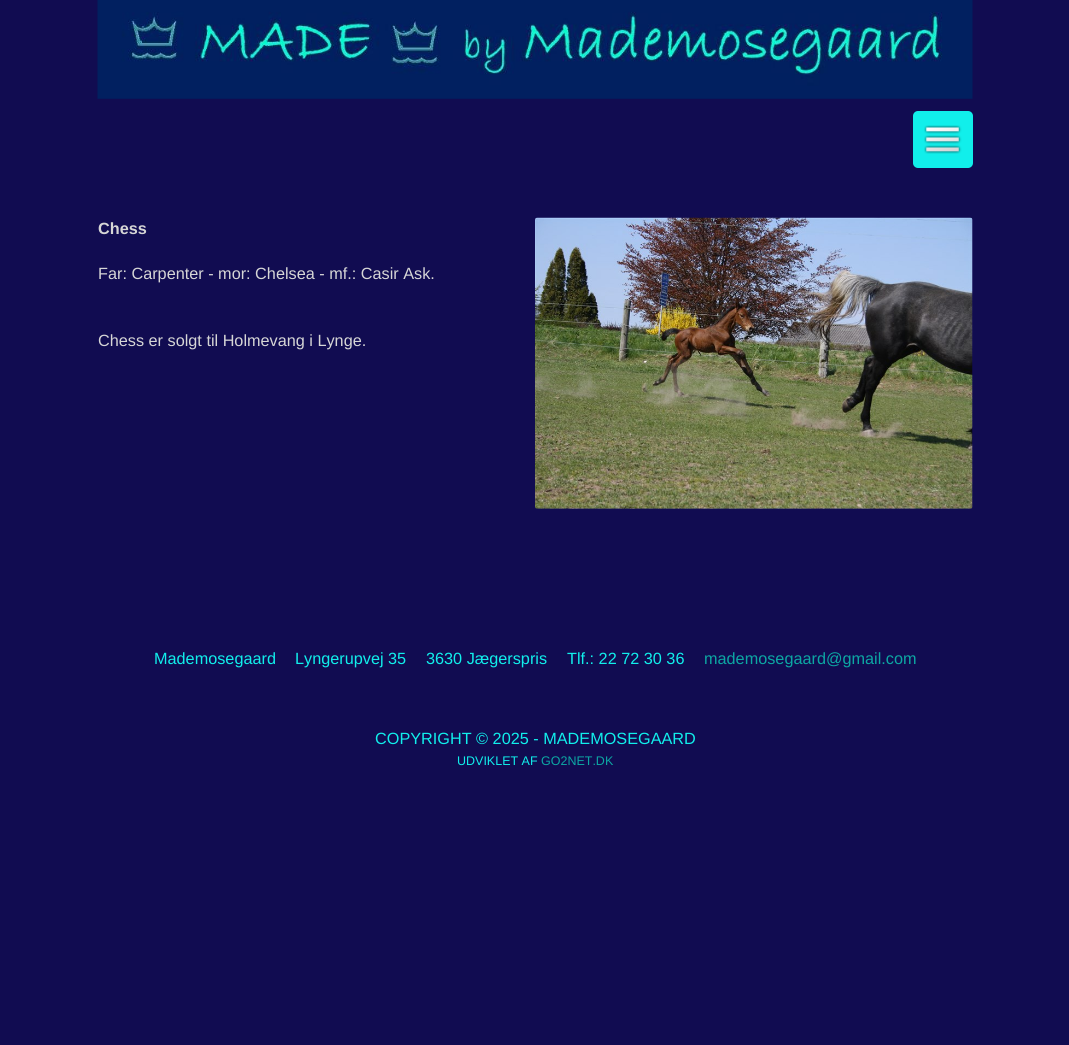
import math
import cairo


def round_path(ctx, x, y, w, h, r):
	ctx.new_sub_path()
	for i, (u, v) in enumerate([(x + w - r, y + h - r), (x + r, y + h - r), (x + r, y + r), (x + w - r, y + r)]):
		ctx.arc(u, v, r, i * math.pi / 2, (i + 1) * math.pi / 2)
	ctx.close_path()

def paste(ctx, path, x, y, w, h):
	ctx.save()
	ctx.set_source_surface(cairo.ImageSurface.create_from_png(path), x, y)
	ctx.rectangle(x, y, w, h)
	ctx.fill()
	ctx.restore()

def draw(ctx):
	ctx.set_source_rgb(0.067, 0.047, 0.318)
	ctx.paint()
	paste(ctx, 'media/1.png', 97, 0, 876, 99)
	ctx.set_source_rgb(0.067, 0.937, 0.918)
	round_path(ctx, 913, 111, 60, 57, 5)
	ctx.fill()
	paste(ctx, 'media/2.png', 924, 125, 38, 29)
	ctx.select_font_face('Liberation Sans', cairo.FONT_SLANT_NORMAL, cairo.FONT_WEIGHT_BOLD)
	ctx.set_font_size(16.25)
	ctx.set_source_rgb(0.839, 0.839, 0.839)
	ctx.move_to(98, 234)
	ctx.show_text('Chess')
	ctx.select_font_face('Liberation Sans')
	ctx.move_to(98, 279)
	ctx.show_text('Far: Carpenter - mor: Chelsea - mf.: Casir Ask.')
	ctx.move_to(98, 346)
	ctx.show_text('Chess er solgt til Holmevang i Lynge.')
	paste(ctx, 'media/3.png', 535, 217, 438, 292)
	ctx.set_source_rgb(0.067, 0.937, 0.918)
	for x, y, s in [
		(154, 664, 'Mademosegaard'),
		(295, 664, 'Lyngerupvej 35'),
		(426, 664, '3630 Jægerspris'),
		(567, 664, 'Tlf.: 22 72 30 36'),
	]:
		ctx.move_to(x, y)
		ctx.show_text(s)
	ctx.set_source_rgb(0.047, 0.655, 0.639)
	ctx.move_to(704, 664)
	ctx.show_text('mademosegaard@gmail.com')
	ctx.set_source_rgb(0.067, 0.937, 0.918)
	ctx.move_to(375, 744)
	ctx.show_text('COPYRIGHT © 2025 - MADEMOSEGAARD')
	ctx.set_font_size(12.5)
	ctx.move_to(457, 765)
	ctx.show_text('UDVIKLET AF')
	ctx.set_source_rgb(0.047, 0.655, 0.639)
	ctx.move_to(541, 765)
	ctx.show_text('GO2NET.DK')


surface = cairo.ImageSurface(cairo.FORMAT_RGB24, 1069, 1045)
ctx = cairo.Context(surface)
options = cairo.FontOptions()
options.set_hint_metrics(cairo.HINT_METRICS_OFF)
options.set_hint_style(cairo.HINT_STYLE_NONE)
ctx.set_font_options(options)
ctx.set_miter_limit(4)
draw(ctx)
surface.write_to_png('image.png')
